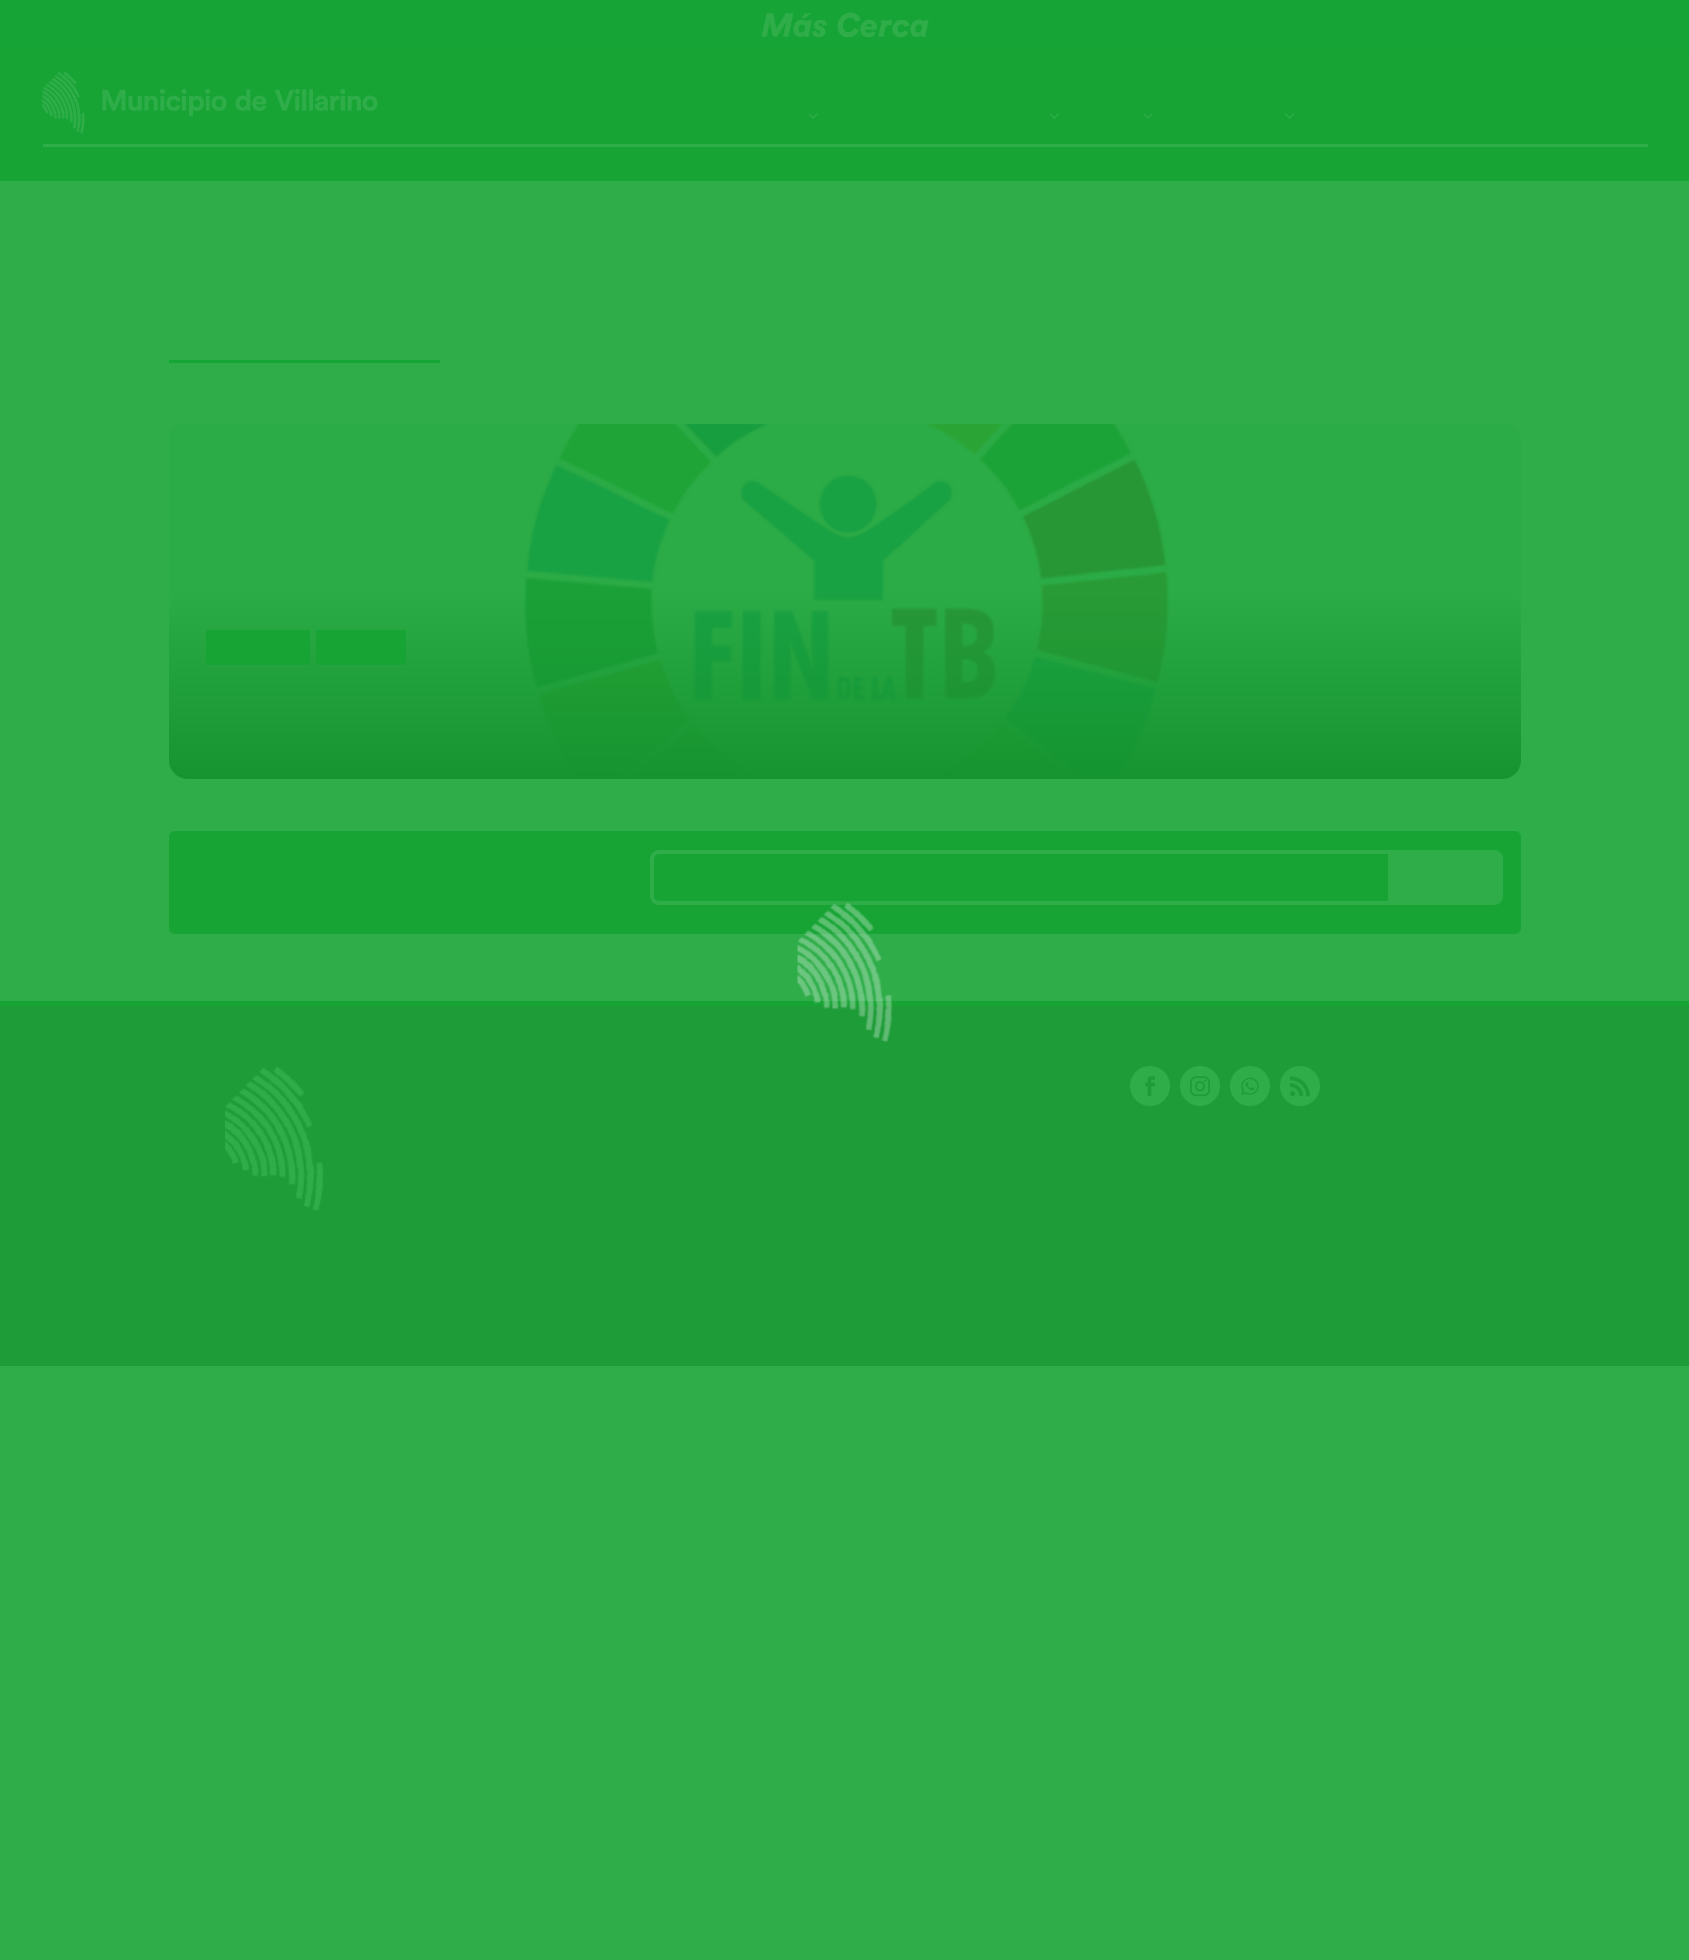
import math
import cairo


def round_path(ctx, x, y, w, h, r):
	ctx.new_sub_path()
	for i, (u, v) in enumerate([(x + w - r, y + h - r), (x + r, y + h - r), (x + r, y + r), (x + w - r, y + r)]):
		ctx.arc(u, v, r, i * math.pi / 2, (i + 1) * math.pi / 2)
	ctx.close_path()

def paste(ctx, path, x, y, w, h):
	ctx.save()
	ctx.set_source_surface(cairo.ImageSurface.create_from_png(path), x, y)
	ctx.rectangle(x, y, w, h)
	ctx.fill()
	ctx.restore()

def draw(ctx):
	ctx.set_source_rgb(1, 1, 1)
	ctx.paint()
	ctx.set_source_rgb(0.094, 0.643, 0.212)
	ctx.rectangle(0, 50, 1689, 131)
	ctx.fill()
	ctx.set_source_rgb(0.071, 0.643, 0.224)
	ctx.rectangle(0, 0, 1689, 50)
	ctx.fill()
	paste(ctx, 'media/1.png', 761, 12, 168, 26)
	ctx.set_source_rgb(1, 1, 1)
	ctx.rectangle(43, 144, 1605, 3)
	ctx.fill()
	paste(ctx, 'media/2.png', 42, 71, 336, 63)
	paste(ctx, 'media/3.png', 808, 113, 10, 6)
	paste(ctx, 'media/4.png', 1049, 113, 10, 6)
	paste(ctx, 'media/3.png', 1143, 113, 10, 6)
	paste(ctx, 'media/4.png', 1284, 113, 10, 6)
	ctx.set_source_rgb(0, 0.682, 0.259)
	ctx.rectangle(169, 360, 271, 3)
	ctx.fill()
	paste(ctx, 'media/5.png', 169, 423, 1352, 356)
	gradient = cairo.LinearGradient(845, 592, 845, 779)
	gradient.add_color_stop_rgba(0, 0, 0, 0, 0)
	gradient.add_color_stop_rgba(1, 0, 0, 0, 1)
	ctx.set_source(gradient)
	round_path(ctx, 169, 593, 1352, 186, 19)
	ctx.fill()
	ctx.set_source_rgb(0.094, 0.643, 0.212)
	ctx.rectangle(206, 630, 104, 35)
	ctx.fill()
	ctx.rectangle(316, 630, 90, 35)
	ctx.fill()
	round_path(ctx, 169, 831, 1352, 103, 6)
	ctx.fill()
	round_path(ctx, 652, 852, 849, 51, 7)
	ctx.set_source_rgb(1, 1, 1)
	ctx.set_line_width(4)
	ctx.stroke()
	ctx.new_path()
	ctx.move_to(1388, 854)
	ctx.line_to(1494, 854)
	ctx.curve_to(1497, 854, 1499, 856, 1499, 859)
	ctx.line_to(1499, 896)
	ctx.curve_to(1499, 899, 1497, 901, 1494, 901)
	ctx.line_to(1388, 901)
	ctx.close_path()
	ctx.fill()
	ctx.set_source_rgb(0.337, 0.337, 0.337)
	ctx.rectangle(0, 1006, 1689, 360)
	ctx.fill()
	ctx.set_source_rgb(0.094, 0.643, 0.212)
	ctx.rectangle(0, 1001, 1689, 5)
	ctx.fill()
	paste(ctx, 'media/6.png', 225, 1066, 99, 146)
	ctx.set_source_rgb(1, 1, 1)
	ctx.arc(1150, 1086, 20, 0, 2 * math.pi)
	ctx.fill()
	paste(ctx, 'media/7.png', 1145, 1076, 10, 21)
	ctx.arc(1200, 1086, 20, 0, 2 * math.pi)
	ctx.fill()
	paste(ctx, 'media/8.png', 1190, 1076, 20, 21)
	ctx.arc(1250, 1086, 20, 0, 2 * math.pi)
	ctx.fill()
	paste(ctx, 'media/9.png', 1241, 1077, 18, 18)
	ctx.arc(1300, 1086, 20, 0, 2 * math.pi)
	ctx.fill()
	paste(ctx, 'media/10.png', 1290, 1076, 20, 21)
	ctx.set_source_rgba(0.094, 0.643, 0.212, 0.9)
	ctx.rectangle(0, 0, 845, 1960)
	ctx.fill()
	ctx.rectangle(845, 0, 844, 1960)
	ctx.fill()
	paste(ctx, 'media/11.png', 797, 902, 96, 140)


surface = cairo.ImageSurface(cairo.FORMAT_RGB24, 1689, 1960)
ctx = cairo.Context(surface)
options = cairo.FontOptions()
options.set_hint_metrics(cairo.HINT_METRICS_OFF)
options.set_hint_style(cairo.HINT_STYLE_NONE)
ctx.set_font_options(options)
ctx.set_miter_limit(4)
draw(ctx)
surface.write_to_png('image.png')
